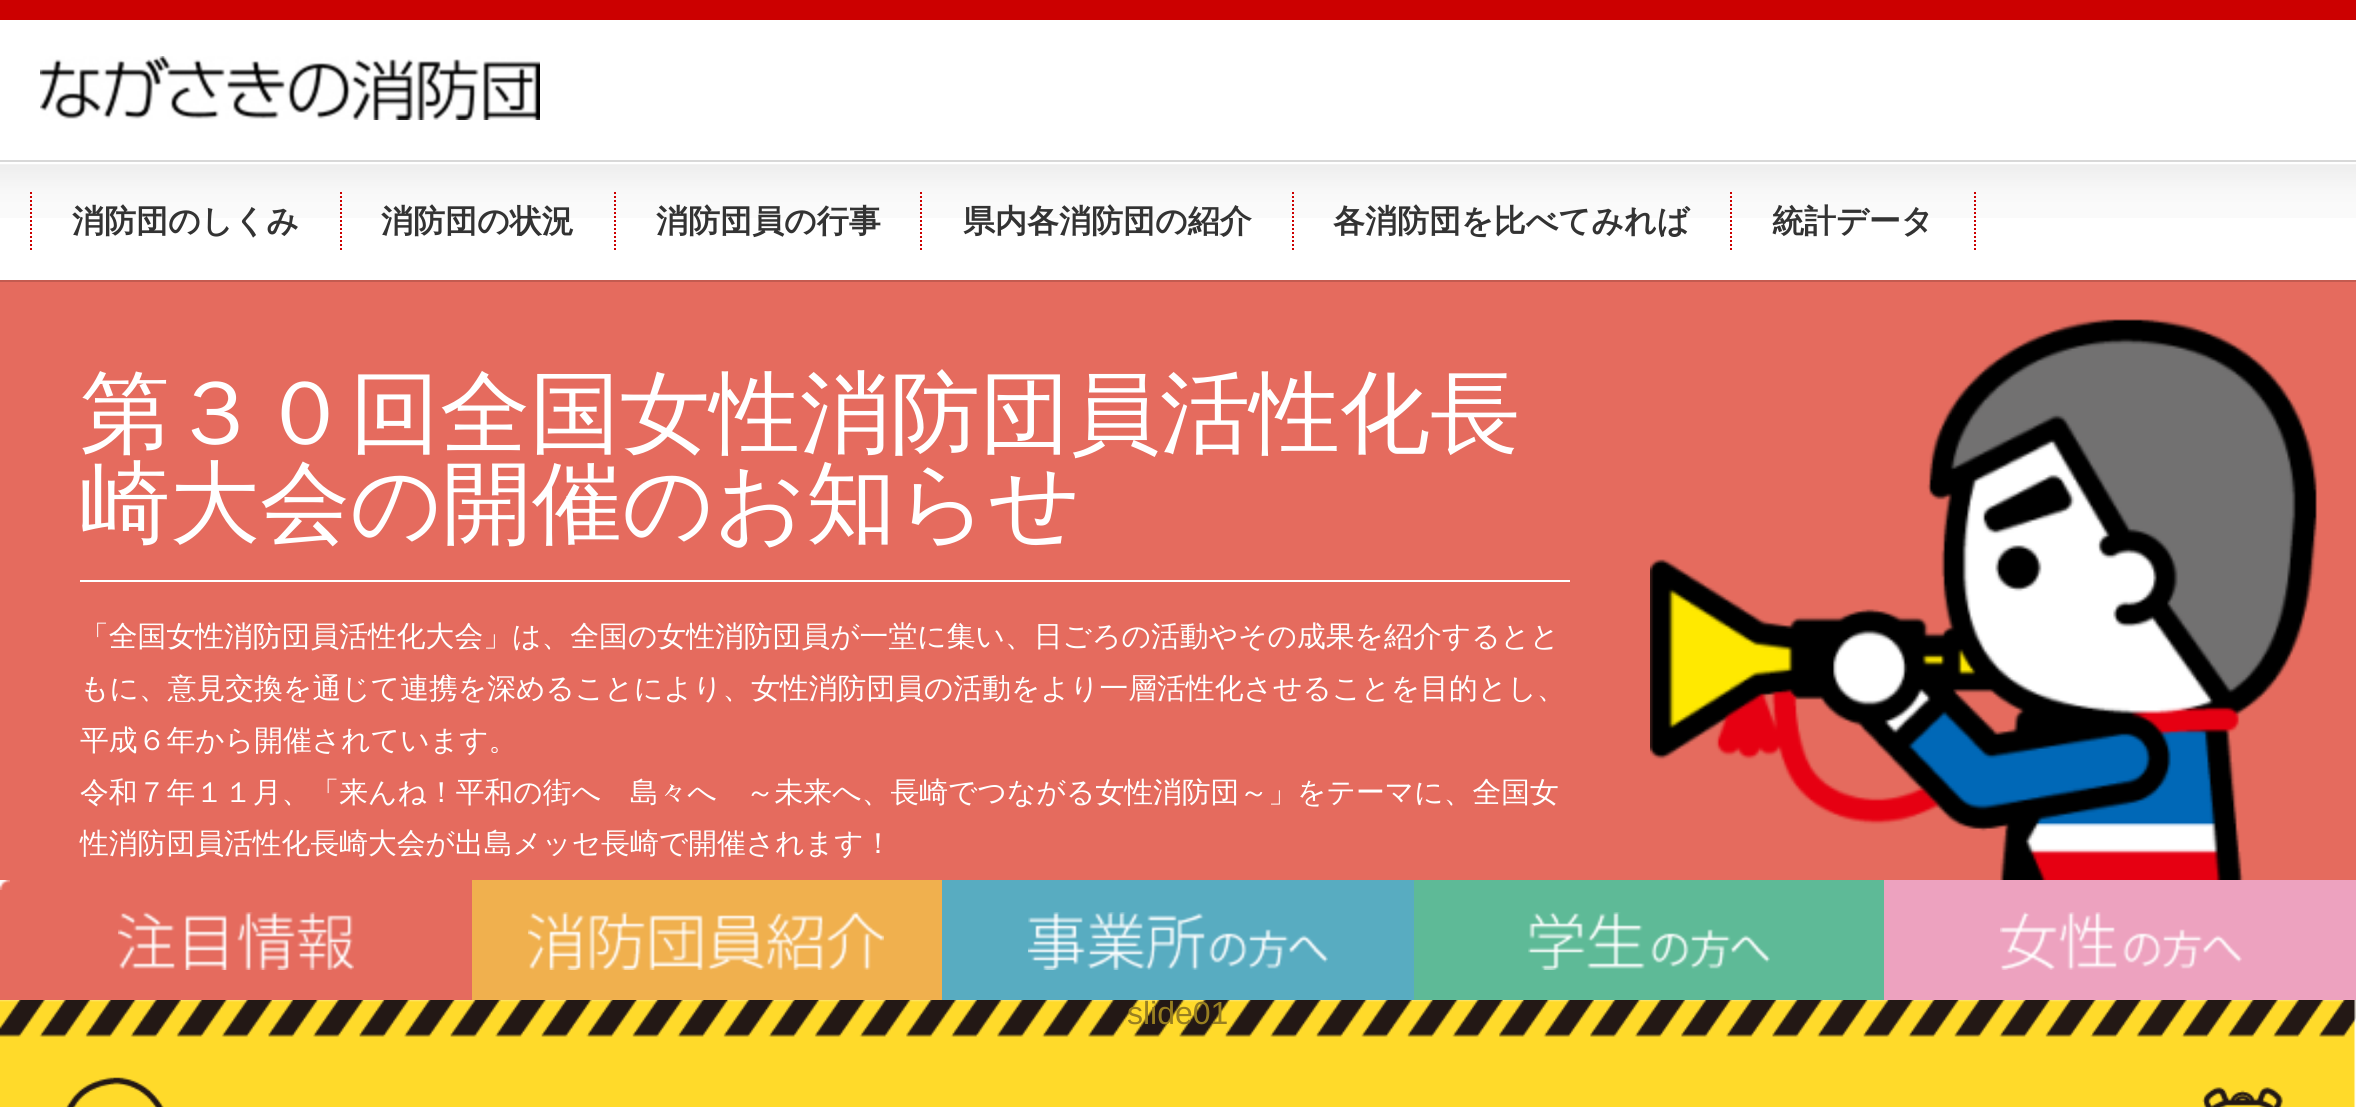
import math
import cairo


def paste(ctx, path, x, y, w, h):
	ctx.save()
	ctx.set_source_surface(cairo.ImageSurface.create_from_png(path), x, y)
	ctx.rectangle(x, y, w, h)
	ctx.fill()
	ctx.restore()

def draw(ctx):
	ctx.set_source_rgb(1, 1, 1)
	ctx.paint()
	ctx.set_source_rgb(0.8, 0, 0)
	ctx.rectangle(0, 0, 2356, 20)
	ctx.fill()
	paste(ctx, 'media/1.png', 40, 56, 500, 64)
	paste(ctx, 'media/2.png', 0, 164, 2356, 54)
	ctx.set_source_rgb(0.847, 0.847, 0.847)
	ctx.rectangle(0, 160, 2356, 2)
	ctx.fill()
	ctx.new_path()
	ctx.move_to(31, 192)
	ctx.line_to(31, 252)
	ctx.set_source_rgb(0.8, 0, 0)
	ctx.set_dash([2, 2])
	ctx.stroke()
	ctx.new_path()
	ctx.move_to(341, 192)
	ctx.line_to(341, 252)
	ctx.stroke()
	ctx.select_font_face('WenQuanYi Zen Hei', cairo.FONT_SLANT_NORMAL, cairo.FONT_WEIGHT_BOLD)
	ctx.set_font_size(32)
	ctx.set_source_rgb(0.2, 0.2, 0.2)
	ctx.move_to(72, 232)
	ctx.show_text('消防団のしくみ')
	ctx.new_path()
	ctx.move_to(615, 192)
	ctx.line_to(615, 252)
	ctx.set_source_rgb(0.8, 0, 0)
	ctx.stroke()
	ctx.set_source_rgb(0.2, 0.2, 0.2)
	ctx.move_to(381, 232)
	ctx.show_text('消防団の状況')
	ctx.new_path()
	ctx.move_to(921, 192)
	ctx.line_to(921, 252)
	ctx.set_source_rgb(0.8, 0, 0)
	ctx.stroke()
	ctx.set_source_rgb(0.2, 0.2, 0.2)
	ctx.move_to(656, 232)
	ctx.show_text('消防団員の行事')
	ctx.new_path()
	ctx.move_to(1293, 192)
	ctx.line_to(1293, 252)
	ctx.set_source_rgb(0.8, 0, 0)
	ctx.stroke()
	ctx.set_source_rgb(0.2, 0.2, 0.2)
	ctx.move_to(963, 232)
	ctx.show_text('県内各消防団の紹介')
	ctx.new_path()
	ctx.move_to(1731, 192)
	ctx.line_to(1731, 252)
	ctx.set_source_rgb(0.8, 0, 0)
	ctx.stroke()
	ctx.set_source_rgb(0.2, 0.2, 0.2)
	ctx.move_to(1333, 232)
	ctx.show_text('各消防団を比べてみれば')
	ctx.new_path()
	ctx.move_to(1975, 192)
	ctx.line_to(1975, 252)
	ctx.set_source_rgb(0.8, 0, 0)
	ctx.stroke()
	ctx.set_source_rgb(0.2, 0.2, 0.2)
	ctx.move_to(1772, 232)
	ctx.show_text('統計データ')
	ctx.set_source_rgb(0.765, 0.357, 0.314)
	ctx.rectangle(0, 280, 2356, 2)
	ctx.fill()
	ctx.set_source_rgb(0.898, 0.42, 0.369)
	ctx.rectangle(0, 282, 2356, 598)
	ctx.fill()
	ctx.select_font_face('WenQuanYi Zen Hei Medium')
	ctx.set_font_size(90)
	ctx.set_source_rgb(1, 1, 1)
	ctx.move_to(80, 444)
	ctx.show_text('第３０回全国女性消防団員活性化長')
	ctx.move_to(80, 534)
	ctx.show_text('崎大会の開催のお知らせ')
	ctx.rectangle(80, 580, 1490, 2)
	ctx.fill()
	ctx.set_font_size(28.8)
	for x, y, s in [
		(80, 646, '「全国女性消防団員活性化大会」は、全国の女性消防団員が一堂に集い、日ごろの活動やその成果を紹介するとと'),
		(80, 698, 'もに、意見交換を通じて連携を深めることにより、女性消防団員の活動をより一層活性化させることを目的とし、'),
		(80, 750, '平成６年から開催されています。'),
		(80, 802, '令和７年１１月、「来んね！平和の街へ　島々へ　～未来へ、長崎でつながる女性消防団～」をテーマに、全国女'),
		(80, 853, '性消防団員活性化長崎大会が出島メッセ長崎で開催されます！'),
	]:
		ctx.move_to(x, y)
		ctx.show_text(s)
	paste(ctx, 'media/3.png', 1650, 319, 667, 561)
	ctx.set_source_rgb(0.898, 0.42, 0.369)
	ctx.rectangle(0, 880, 472, 120)
	ctx.fill()
	paste(ctx, 'media/4.png', 118, 912, 236, 58)
	paste(ctx, 'media/5.png', 0, 880, 10, 10)
	ctx.set_source_rgb(0.941, 0.69, 0.306)
	ctx.rectangle(472, 880, 470, 120)
	ctx.fill()
	paste(ctx, 'media/6.png', 528, 912, 356, 58)
	ctx.set_source_rgb(0.345, 0.675, 0.757)
	ctx.rectangle(942, 880, 472, 120)
	ctx.fill()
	paste(ctx, 'media/7.png', 1028, 912, 300, 58)
	ctx.set_source_rgb(0.369, 0.729, 0.592)
	ctx.rectangle(1414, 880, 470, 120)
	ctx.fill()
	paste(ctx, 'media/8.png', 1528, 912, 242, 58)
	ctx.set_source_rgb(0.929, 0.635, 0.749)
	ctx.rectangle(1884, 880, 472, 120)
	ctx.fill()
	paste(ctx, 'media/9.png', 2000, 912, 242, 58)
	paste(ctx, 'media/10.png', 0, 1000, 2356, 107)
	ctx.select_font_face('Liberation Sans')
	ctx.set_font_size(32)
	ctx.set_source_rgb(0.596, 0.498, 0.129)
	ctx.move_to(1127, 1024)
	ctx.show_text('slide01')


surface = cairo.ImageSurface(cairo.FORMAT_RGB24, 2356, 1107)
ctx = cairo.Context(surface)
options = cairo.FontOptions()
options.set_hint_metrics(cairo.HINT_METRICS_OFF)
options.set_hint_style(cairo.HINT_STYLE_NONE)
ctx.set_font_options(options)
ctx.set_miter_limit(4)
draw(ctx)
surface.write_to_png('image.png')
